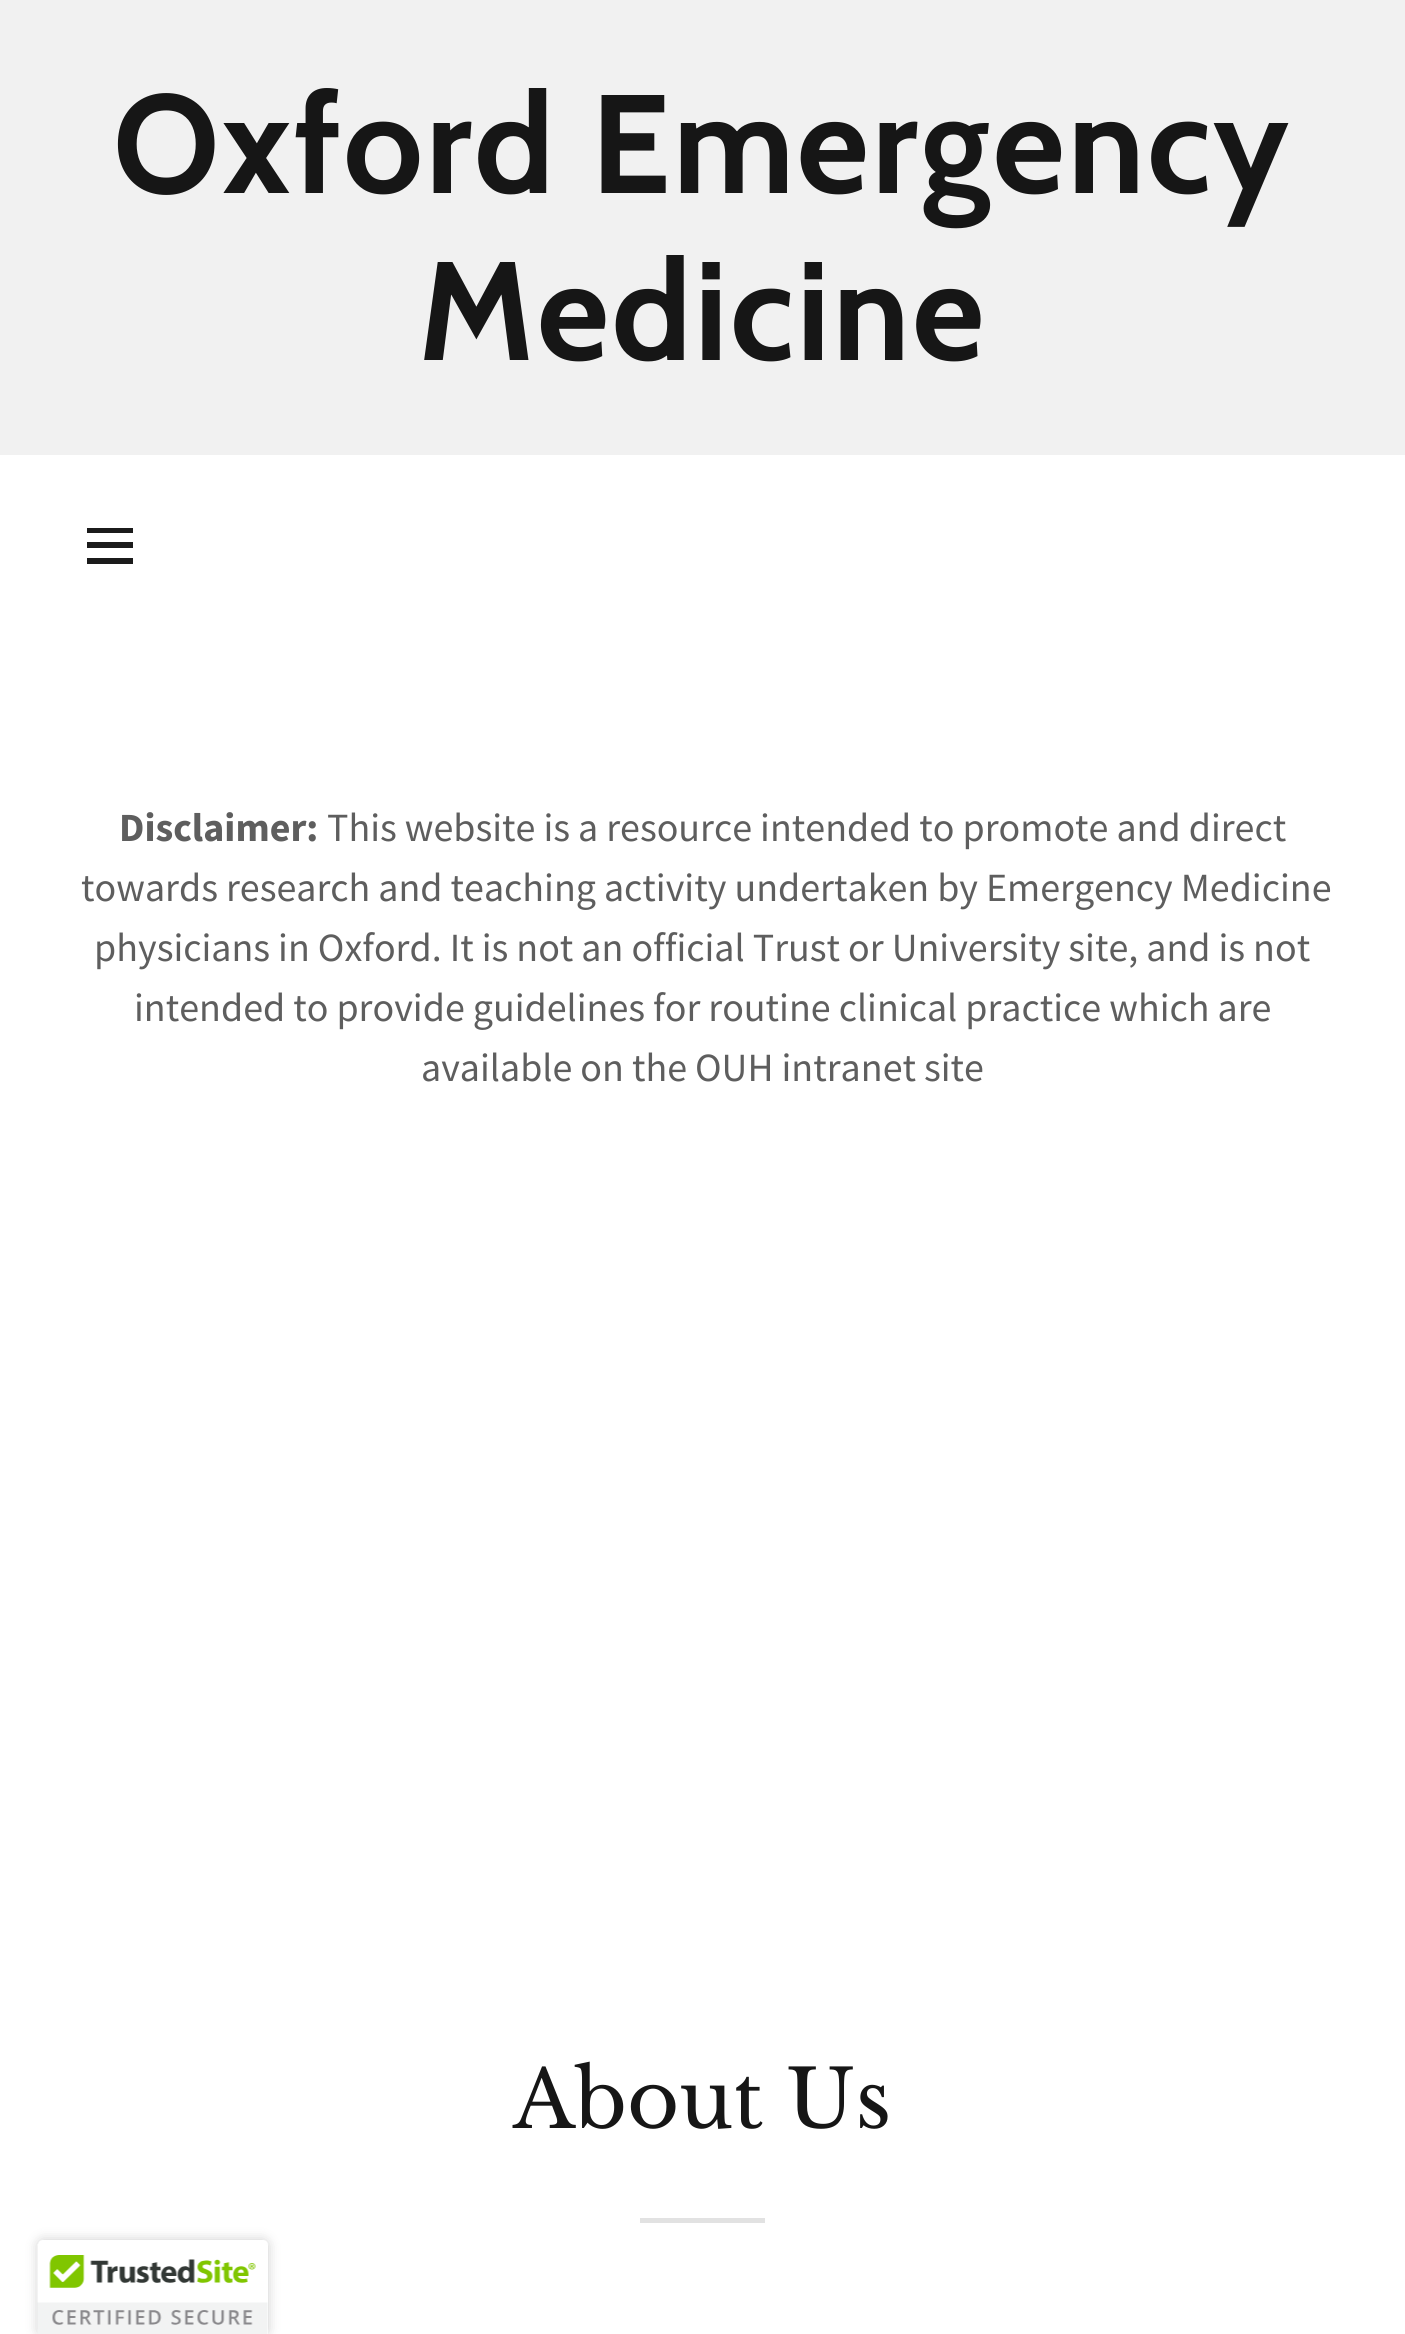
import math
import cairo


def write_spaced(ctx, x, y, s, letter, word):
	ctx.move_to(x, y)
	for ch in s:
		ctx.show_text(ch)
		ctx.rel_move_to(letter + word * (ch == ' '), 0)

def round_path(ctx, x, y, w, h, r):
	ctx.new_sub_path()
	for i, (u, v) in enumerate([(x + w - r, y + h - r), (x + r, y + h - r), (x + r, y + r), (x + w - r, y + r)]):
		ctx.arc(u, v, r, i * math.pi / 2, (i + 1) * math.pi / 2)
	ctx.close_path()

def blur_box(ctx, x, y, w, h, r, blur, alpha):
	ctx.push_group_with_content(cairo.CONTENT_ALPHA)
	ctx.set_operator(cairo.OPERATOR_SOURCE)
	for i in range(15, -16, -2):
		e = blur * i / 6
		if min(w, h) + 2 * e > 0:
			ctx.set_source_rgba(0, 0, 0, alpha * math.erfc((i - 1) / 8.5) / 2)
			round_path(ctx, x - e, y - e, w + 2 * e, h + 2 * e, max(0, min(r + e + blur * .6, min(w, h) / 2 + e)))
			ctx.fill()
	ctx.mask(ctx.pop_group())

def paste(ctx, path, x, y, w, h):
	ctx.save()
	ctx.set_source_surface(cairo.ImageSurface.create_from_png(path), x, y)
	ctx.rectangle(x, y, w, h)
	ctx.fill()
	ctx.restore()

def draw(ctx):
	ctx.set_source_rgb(1, 1, 1)
	ctx.paint()
	ctx.set_source_rgb(0.945, 0.945, 0.945)
	ctx.rectangle(0, 0, 1405, 455)
	ctx.fill()
	ctx.select_font_face('Cabin', cairo.FONT_SLANT_NORMAL, cairo.FONT_WEIGHT_BOLD)
	ctx.set_font_size(140)
	ctx.set_source_rgb(0.086, 0.086, 0.086)
	write_spaced(ctx, 113, 193, 'Oxford Emergency', 2.5, 0)
	write_spaced(ctx, 418, 360, 'Medicine', 2.5, 0)
	ctx.set_source_rgb(0.106, 0.106, 0.106)
	ctx.rectangle(87, 528, 46, 5)
	ctx.rectangle(87, 542, 46, 6)
	ctx.rectangle(87, 558, 46, 6)
	ctx.fill()
	ctx.select_font_face('Source Sans Pro', cairo.FONT_SLANT_NORMAL, cairo.FONT_WEIGHT_BOLD)
	ctx.set_font_size(40)
	ctx.set_source_rgb(0.369, 0.369, 0.369)
	ctx.move_to(119, 841)
	ctx.show_text('Disclaimer:')
	ctx.select_font_face('Source Sans Pro')
	for x, y, s in [
		(327, 841, 'This website is a resource intended to promote and direct'),
		(81, 901, 'towards research and teaching activity undertaken by Emergency Medicine'),
		(94, 961, 'physicians in Oxford. It is not an official Trust or University site, and is not'),
		(134, 1021, 'intended to provide guidelines for routine clinical practice which are'),
		(421, 1081, 'available on the OUH intranet site'),
	]:
		ctx.move_to(x, y)
		ctx.show_text(s)
	ctx.select_font_face('Libre Baskerville')
	ctx.set_font_size(80)
	ctx.set_source_rgb(0.086, 0.086, 0.086)
	ctx.move_to(513, 2128)
	ctx.show_text('About Us')
	ctx.set_source_rgb(0.886, 0.886, 0.886)
	ctx.rectangle(640, 2218, 125, 5)
	ctx.fill()
	ctx.set_source_rgb(0, 0, 0)
	blur_box(ctx, 38, 2240, 230, 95, 5, 6, 0.2)
	ctx.set_source_rgb(1, 1, 1)
	ctx.new_path()
	ctx.move_to(43, 2240)
	ctx.line_to(263, 2240)
	ctx.curve_to(266, 2240, 268, 2242, 268, 2245)
	ctx.line_to(268, 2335)
	ctx.line_to(38, 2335)
	ctx.line_to(38, 2245)
	ctx.curve_to(38, 2242, 40, 2240, 43, 2240)
	ctx.close_path()
	ctx.fill()
	paste(ctx, 'media/1.png', 37, 2244, 231, 90)


surface = cairo.ImageSurface(cairo.FORMAT_RGB24, 1405, 2334)
ctx = cairo.Context(surface)
options = cairo.FontOptions()
options.set_hint_metrics(cairo.HINT_METRICS_OFF)
options.set_hint_style(cairo.HINT_STYLE_NONE)
ctx.set_font_options(options)
ctx.set_miter_limit(4)
draw(ctx)
surface.write_to_png('image.png')
